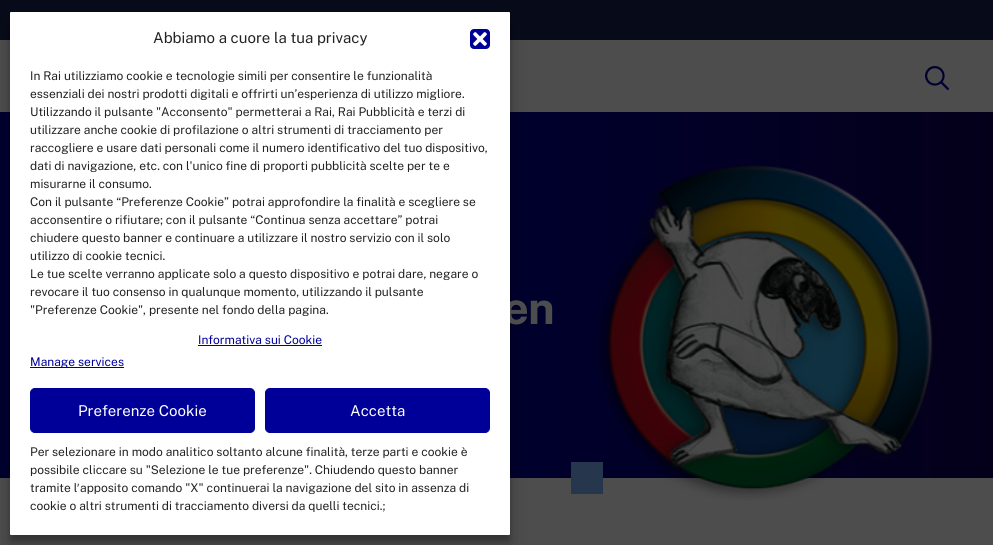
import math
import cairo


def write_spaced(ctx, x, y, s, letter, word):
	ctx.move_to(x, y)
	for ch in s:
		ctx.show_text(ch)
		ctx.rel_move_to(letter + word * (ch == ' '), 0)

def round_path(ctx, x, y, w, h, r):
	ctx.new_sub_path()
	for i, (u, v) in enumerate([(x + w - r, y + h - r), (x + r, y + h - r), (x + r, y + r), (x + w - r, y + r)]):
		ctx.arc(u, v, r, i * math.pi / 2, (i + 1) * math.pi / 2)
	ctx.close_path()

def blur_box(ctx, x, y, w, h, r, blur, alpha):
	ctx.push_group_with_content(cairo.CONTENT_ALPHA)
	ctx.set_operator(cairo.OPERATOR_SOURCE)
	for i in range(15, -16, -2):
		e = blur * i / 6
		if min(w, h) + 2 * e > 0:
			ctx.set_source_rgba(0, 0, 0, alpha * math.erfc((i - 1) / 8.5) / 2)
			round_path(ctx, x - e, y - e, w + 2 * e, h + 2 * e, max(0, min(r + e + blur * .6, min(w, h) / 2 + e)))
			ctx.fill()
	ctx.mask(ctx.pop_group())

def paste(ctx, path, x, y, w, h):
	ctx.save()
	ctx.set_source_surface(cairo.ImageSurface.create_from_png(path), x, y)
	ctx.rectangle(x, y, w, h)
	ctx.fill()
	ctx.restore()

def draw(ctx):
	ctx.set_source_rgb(0.302, 0.302, 0.302)
	ctx.paint()
	ctx.set_source_rgb(0.031, 0.043, 0.098)
	ctx.rectangle(0, 0, 993, 40)
	ctx.fill()
	gradient = cairo.LinearGradient(0, 295, 993, 295)
	gradient.add_color_stop_rgba(0.5, 0, 0, 0.18, 1)
	gradient.add_color_stop_rgba(1, 0.016, 0, 0.102, 1)
	ctx.set_source(gradient)
	ctx.rectangle(0, 112, 993, 366)
	ctx.fill()
	ctx.set_source_rgb(0, 0, 0)
	blur_box(ctx, 10, 18, 500, 523, 1, 3, 0.23)
	blur_box(ctx, 10, 22, 500, 523, 1, 10, 0.19)
	ctx.select_font_face('Public Sans', cairo.FONT_SLANT_NORMAL, cairo.FONT_WEIGHT_BOLD)
	ctx.set_font_size(45)
	ctx.set_source_rgb(0.302, 0.302, 0.302)
	write_spaced(ctx, 503, 324, 'en', -1, 0)
	ctx.set_source_rgb(1, 1, 1)
	round_path(ctx, 10, 12, 500, 523, 1)
	ctx.fill()
	ctx.select_font_face('Public Sans')
	ctx.set_font_size(15)
	ctx.set_source_rgb(0.133, 0.133, 0.133)
	ctx.move_to(153, 43)
	ctx.show_text('Abbiamo a cuore la tua privacy')
	ctx.set_source_rgb(0, 0, 0.6)
	round_path(ctx, 470, 29, 20, 20, 4)
	ctx.fill()
	paste(ctx, 'media/1.png', 473, 32, 14, 14)
	ctx.set_font_size(12)
	ctx.set_source_rgb(0.133, 0.133, 0.133)
	for x, y, s in [
		(30, 80, 'In Rai utilizziamo cookie e tecnologie simili per consentire le funzionalità'),
		(30, 98, 'essenziali dei nostri prodotti digitali e offrirti un’esperienza di utilizzo migliore.'),
		(30, 116, 'Utilizzando il pulsante "Acconsento" permetterai a Rai, Rai Pubblicità e terzi di'),
		(30, 134, 'utilizzare anche cookie di profilazione o altri strumenti di tracciamento per'),
		(30, 152, 'raccogliere e usare dati personali come il numero identificativo del tuo dispositivo,'),
		(30, 170, 'dati di navigazione, etc. con l\'unico fine di proporti pubblicità scelte per te e'),
		(30, 188, 'misurarne il consumo.'),
		(30, 206, 'Con il pulsante “Preferenze Cookie” potrai approfondire la finalità e scegliere se'),
		(30, 224, 'acconsentire o rifiutare; con il pulsante “Continua senza accettare” potrai'),
		(30, 242, 'chiudere questo banner e continuare a utilizzare il nostro servizio con il solo'),
		(30, 260, 'utilizzo di cookie tecnici.'),
		(30, 278, 'Le tue scelte verranno applicate solo a questo dispositivo e potrai dare, negare o'),
		(30, 296, 'revocare il tuo consenso in qualunque momento, utilizzando il pulsante'),
		(30, 314, '"Preferenze Cookie", presente nel fondo della pagina.'),
	]:
		ctx.move_to(x, y)
		ctx.show_text(s)
	ctx.set_source_rgb(0, 0, 0.6)
	ctx.move_to(198, 344)
	ctx.show_text('Informativa sui Cookie')
	ctx.rectangle(198, 345, 124, 1)
	ctx.fill()
	ctx.rectangle(30, 367, 94, 1)
	ctx.fill()
	ctx.move_to(30, 366)
	ctx.show_text('Manage services')
	round_path(ctx, 30.5, 388.5, 224, 44, 4.5)
	ctx.fill_preserve()
	ctx.set_line_width(1)
	ctx.stroke()
	ctx.set_font_size(15)
	ctx.set_source_rgb(1, 1, 1)
	ctx.move_to(78, 416)
	ctx.show_text('Preferenze Cookie')
	ctx.set_source_rgb(0, 0, 0.6)
	round_path(ctx, 265.5, 388.5, 224, 44, 4.5)
	ctx.fill_preserve()
	ctx.stroke()
	ctx.set_source_rgb(1, 1, 1)
	ctx.move_to(350, 416)
	ctx.show_text('Accetta')
	ctx.set_font_size(12)
	ctx.set_source_rgb(0.133, 0.133, 0.133)
	for x, y, s in [
		(30, 456, 'Per selezionare in modo analitico soltanto alcune finalità, terze parti e cookie è'),
		(30, 474, 'possibile cliccare su "Selezione le tue preferenze". Chiudendo questo banner'),
		(30, 492, 'tramite l'),
	]:
		ctx.move_to(x, y)
		ctx.show_text(s)
	ctx.select_font_face('Liberation Sans')
	ctx.move_to(77, 492)
	ctx.show_text('′')
	ctx.select_font_face('Public Sans')
	ctx.move_to(80, 492)
	ctx.show_text('apposito comando "X" continuerai la navigazione del sito in assenza di')
	ctx.move_to(30, 510)
	ctx.show_text('cookie o altri strumenti di tracciamento diversi da quelli tecnici.;')
	paste(ctx, 'media/2.png', 925, 66, 24, 24)
	paste(ctx, 'media/3.png', 593, 164, 340, 337)
	ctx.set_source_rgb(0.149, 0.212, 0.302)
	ctx.rectangle(571, 462, 32, 32)
	ctx.fill()


surface = cairo.ImageSurface(cairo.FORMAT_RGB24, 993, 545)
ctx = cairo.Context(surface)
options = cairo.FontOptions()
options.set_hint_metrics(cairo.HINT_METRICS_OFF)
options.set_hint_style(cairo.HINT_STYLE_NONE)
ctx.set_font_options(options)
ctx.set_miter_limit(4)
draw(ctx)
surface.write_to_png('image.png')
